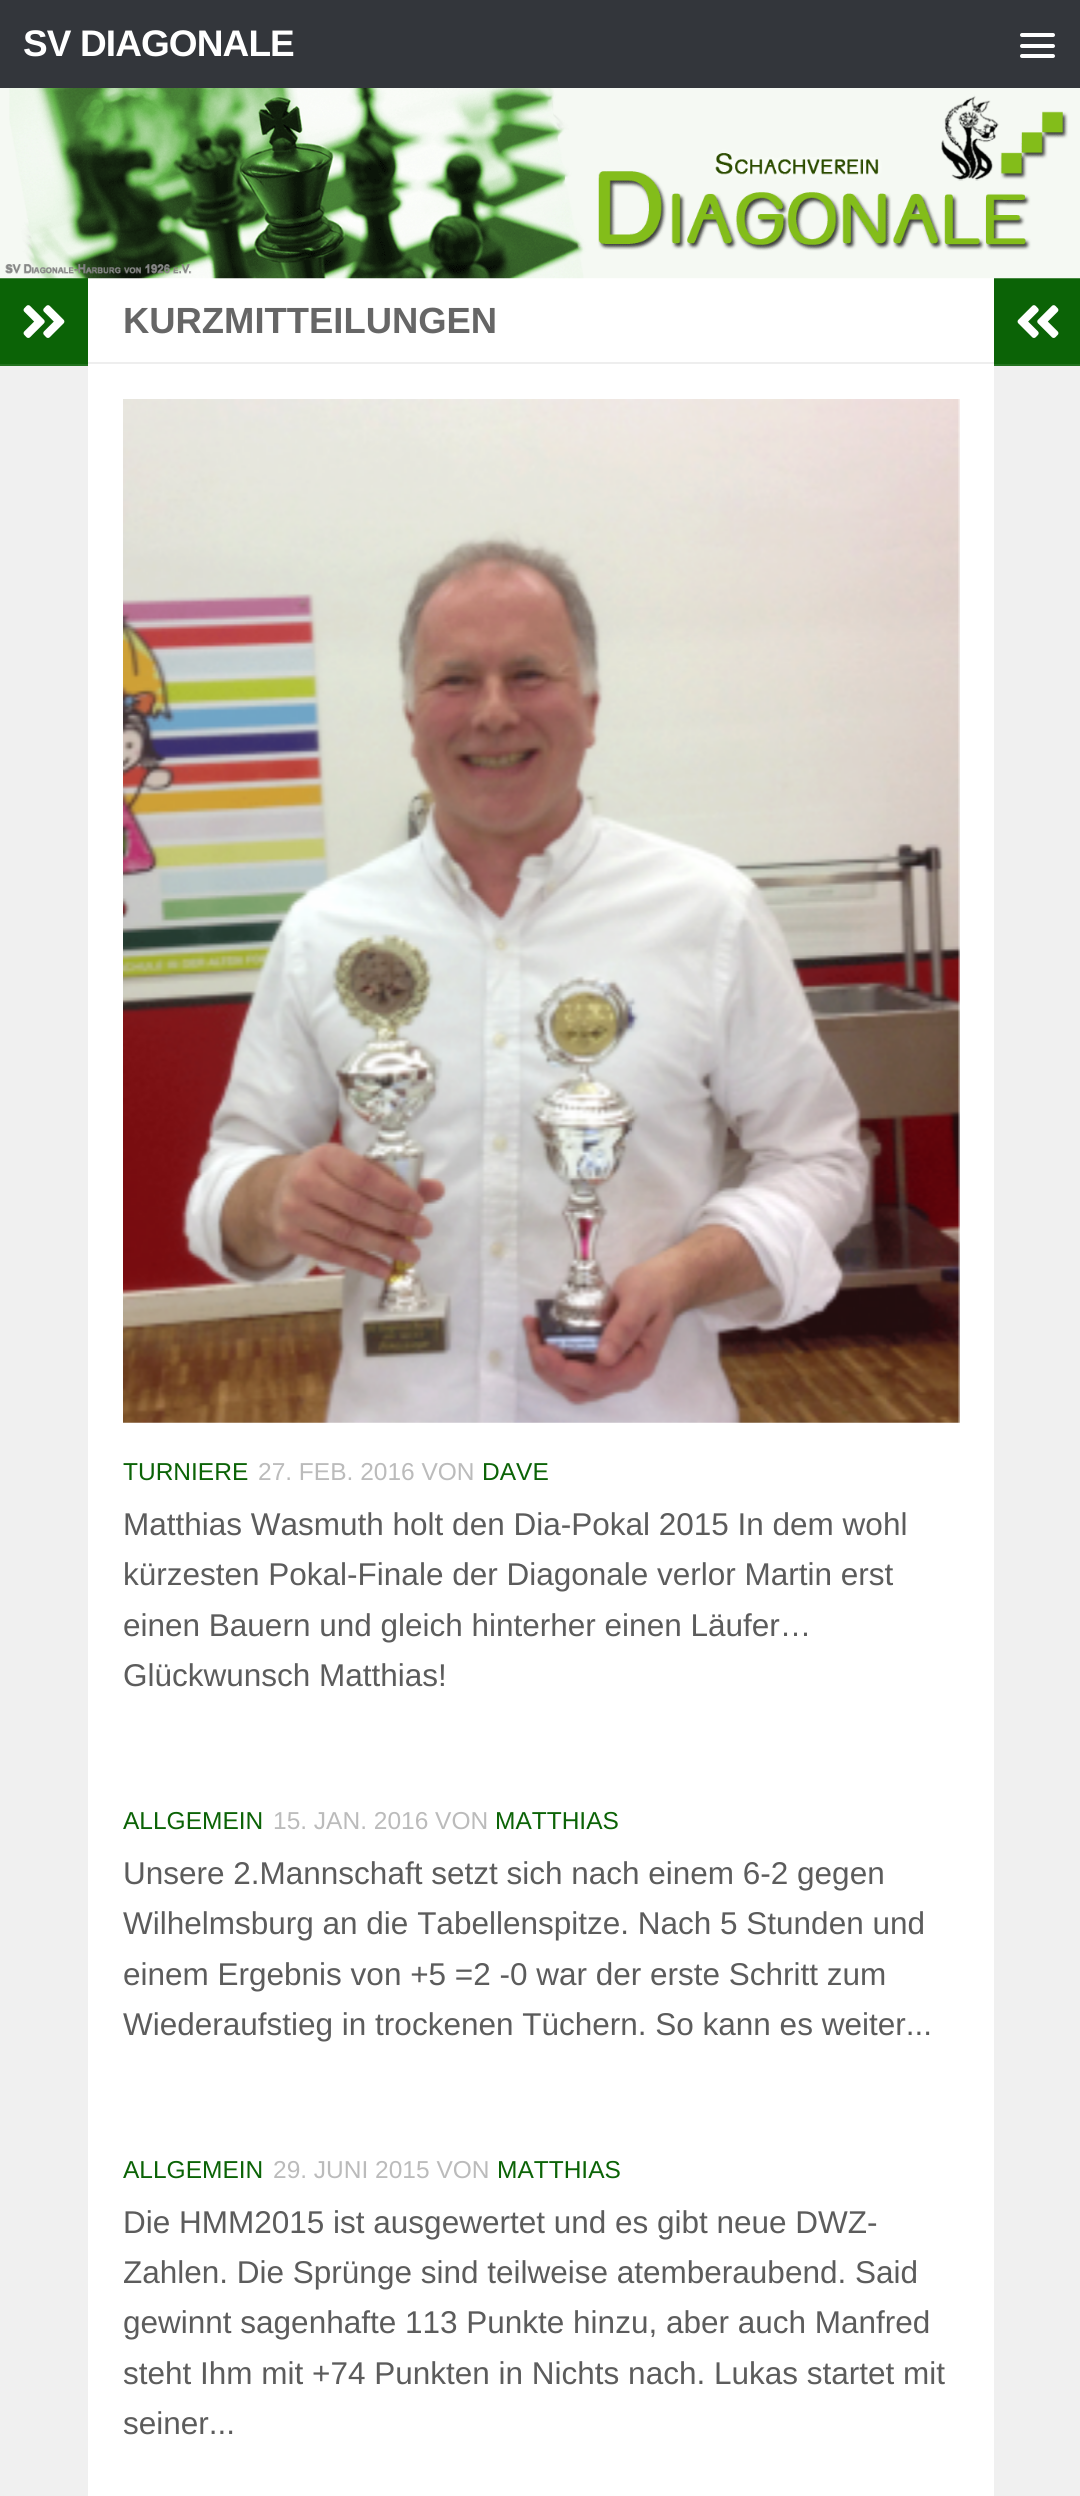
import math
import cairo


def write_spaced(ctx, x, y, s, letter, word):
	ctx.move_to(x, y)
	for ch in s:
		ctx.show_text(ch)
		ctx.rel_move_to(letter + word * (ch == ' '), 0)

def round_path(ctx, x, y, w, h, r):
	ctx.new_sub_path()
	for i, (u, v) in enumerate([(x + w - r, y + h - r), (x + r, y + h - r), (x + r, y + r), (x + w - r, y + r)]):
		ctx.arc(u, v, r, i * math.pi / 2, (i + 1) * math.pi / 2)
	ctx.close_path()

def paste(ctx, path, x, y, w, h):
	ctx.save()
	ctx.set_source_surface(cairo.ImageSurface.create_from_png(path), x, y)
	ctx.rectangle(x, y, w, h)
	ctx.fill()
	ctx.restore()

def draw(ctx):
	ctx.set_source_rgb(1, 1, 1)
	ctx.paint()
	ctx.set_source_rgb(0.2, 0.212, 0.231)
	ctx.rectangle(0, 0, 1080, 88)
	ctx.fill()
	ctx.select_font_face('Liberation Sans', cairo.FONT_SLANT_NORMAL, cairo.FONT_WEIGHT_BOLD)
	ctx.set_font_size(37)
	ctx.set_source_rgb(1, 1, 1)
	write_spaced(ctx, 23, 56, 'SV DIAGONALE', -0.9, 0)
	round_path(ctx, 1020, 33, 35, 4, 2)
	ctx.fill()
	round_path(ctx, 1020, 44, 35, 4, 2)
	ctx.fill()
	round_path(ctx, 1020, 54, 35, 4, 2)
	ctx.fill()
	ctx.set_source_rgb(0.043, 0.388, 0.024)
	ctx.rectangle(0, 278, 88, 86)
	ctx.fill()
	ctx.rectangle(994, 278, 86, 86)
	ctx.fill()
	paste(ctx, 'media/1.png', 0, 88, 1080, 191)
	ctx.set_source_rgb(0.941, 0.941, 0.941)
	ctx.rectangle(0, 366, 88, 2130)
	ctx.fill()
	ctx.set_source_rgb(0.137, 0.451, 0.122)
	ctx.rectangle(0, 364, 88, 2)
	ctx.fill()
	paste(ctx, 'media/2.png', 23, 305, 42, 33)
	ctx.set_source_rgb(0.933, 0.933, 0.933)
	ctx.rectangle(88, 362, 906, 2)
	ctx.fill()
	ctx.set_font_size(36.4)
	ctx.set_source_rgb(0.4, 0.4, 0.4)
	ctx.move_to(123, 333)
	ctx.show_text('KURZMITTEILUNGEN')
	paste(ctx, 'media/3.png', 123, 399, 837, 1024)
	ctx.select_font_face('Liberation Sans')
	ctx.set_font_size(24.5)
	ctx.set_source_rgb(0.043, 0.388, 0.024)
	ctx.move_to(123, 1480)
	ctx.show_text('TURNIERE')
	ctx.set_source_rgb(0.733, 0.733, 0.733)
	ctx.move_to(258, 1480)
	ctx.show_text('27. FEB. 2016 VON')
	ctx.set_source_rgb(0.043, 0.388, 0.024)
	ctx.move_to(482, 1480)
	ctx.show_text('DAVE')
	ctx.set_font_size(31.5)
	ctx.set_source_rgb(0.361, 0.361, 0.361)
	for x, y, s in [
		(123, 1535, 'Matthias Wasmuth holt den Dia-Pokal 2015 In dem wohl'),
		(123, 1585, 'kürzesten Pokal-Finale der Diagonale verlor Martin erst'),
		(123, 1636, 'einen Bauern und gleich hinterher einen Läufer…'),
		(123, 1686, 'Glückwunsch Matthias!'),
	]:
		ctx.move_to(x, y)
		ctx.show_text(s)
	ctx.set_font_size(24.5)
	ctx.set_source_rgb(0.043, 0.388, 0.024)
	ctx.move_to(123, 1829)
	ctx.show_text('ALLGEMEIN')
	ctx.set_source_rgb(0.733, 0.733, 0.733)
	ctx.move_to(273, 1829)
	ctx.show_text('15. JAN. 2016 VON')
	ctx.set_source_rgb(0.043, 0.388, 0.024)
	ctx.move_to(495, 1829)
	ctx.show_text('MATTHIAS')
	ctx.set_font_size(31.5)
	ctx.set_source_rgb(0.361, 0.361, 0.361)
	for x, y, s in [
		(123, 1884, 'Unsere 2.Mannschaft setzt sich nach einem 6-2 gegen'),
		(123, 1934, 'Wilhelmsburg an die Tabellenspitze. Nach 5 Stunden und'),
		(123, 1985, 'einem Ergebnis von +5 =2 -0 war der erste Schritt zum'),
		(123, 2035, 'Wiederaufstieg in trockenen Tüchern. So kann es weiter...'),
	]:
		ctx.move_to(x, y)
		ctx.show_text(s)
	ctx.set_font_size(24.5)
	ctx.set_source_rgb(0.043, 0.388, 0.024)
	ctx.move_to(123, 2178)
	ctx.show_text('ALLGEMEIN')
	ctx.set_source_rgb(0.733, 0.733, 0.733)
	ctx.move_to(273, 2178)
	ctx.show_text('29. JUNI 2015 VON')
	ctx.set_source_rgb(0.043, 0.388, 0.024)
	ctx.move_to(497, 2178)
	ctx.show_text('MATTHIAS')
	ctx.set_font_size(31.5)
	ctx.set_source_rgb(0.361, 0.361, 0.361)
	for x, y, s in [
		(123, 2233, 'Die HMM2015 ist ausgewertet und es gibt neue DWZ-'),
		(123, 2283, 'Zahlen. Die Sprünge sind teilweise atemberaubend. Said'),
		(123, 2333, 'gewinnt sagenhafte 113 Punkte hinzu, aber auch Manfred'),
		(123, 2384, 'steht Ihm mit +74 Punkten in Nichts nach. Lukas startet mit'),
		(123, 2434, 'seiner...'),
	]:
		ctx.move_to(x, y)
		ctx.show_text(s)
	ctx.set_source_rgb(0.137, 0.451, 0.122)
	ctx.rectangle(994, 364, 86, 2)
	ctx.fill()
	paste(ctx, 'media/4.png', 1017, 305, 42, 33)
	ctx.set_source_rgb(0.941, 0.941, 0.941)
	ctx.rectangle(994, 366, 86, 2130)
	ctx.fill()


surface = cairo.ImageSurface(cairo.FORMAT_RGB24, 1080, 2496)
ctx = cairo.Context(surface)
options = cairo.FontOptions()
options.set_hint_metrics(cairo.HINT_METRICS_OFF)
options.set_hint_style(cairo.HINT_STYLE_NONE)
ctx.set_font_options(options)
ctx.set_miter_limit(4)
draw(ctx)
surface.write_to_png('image.png')
